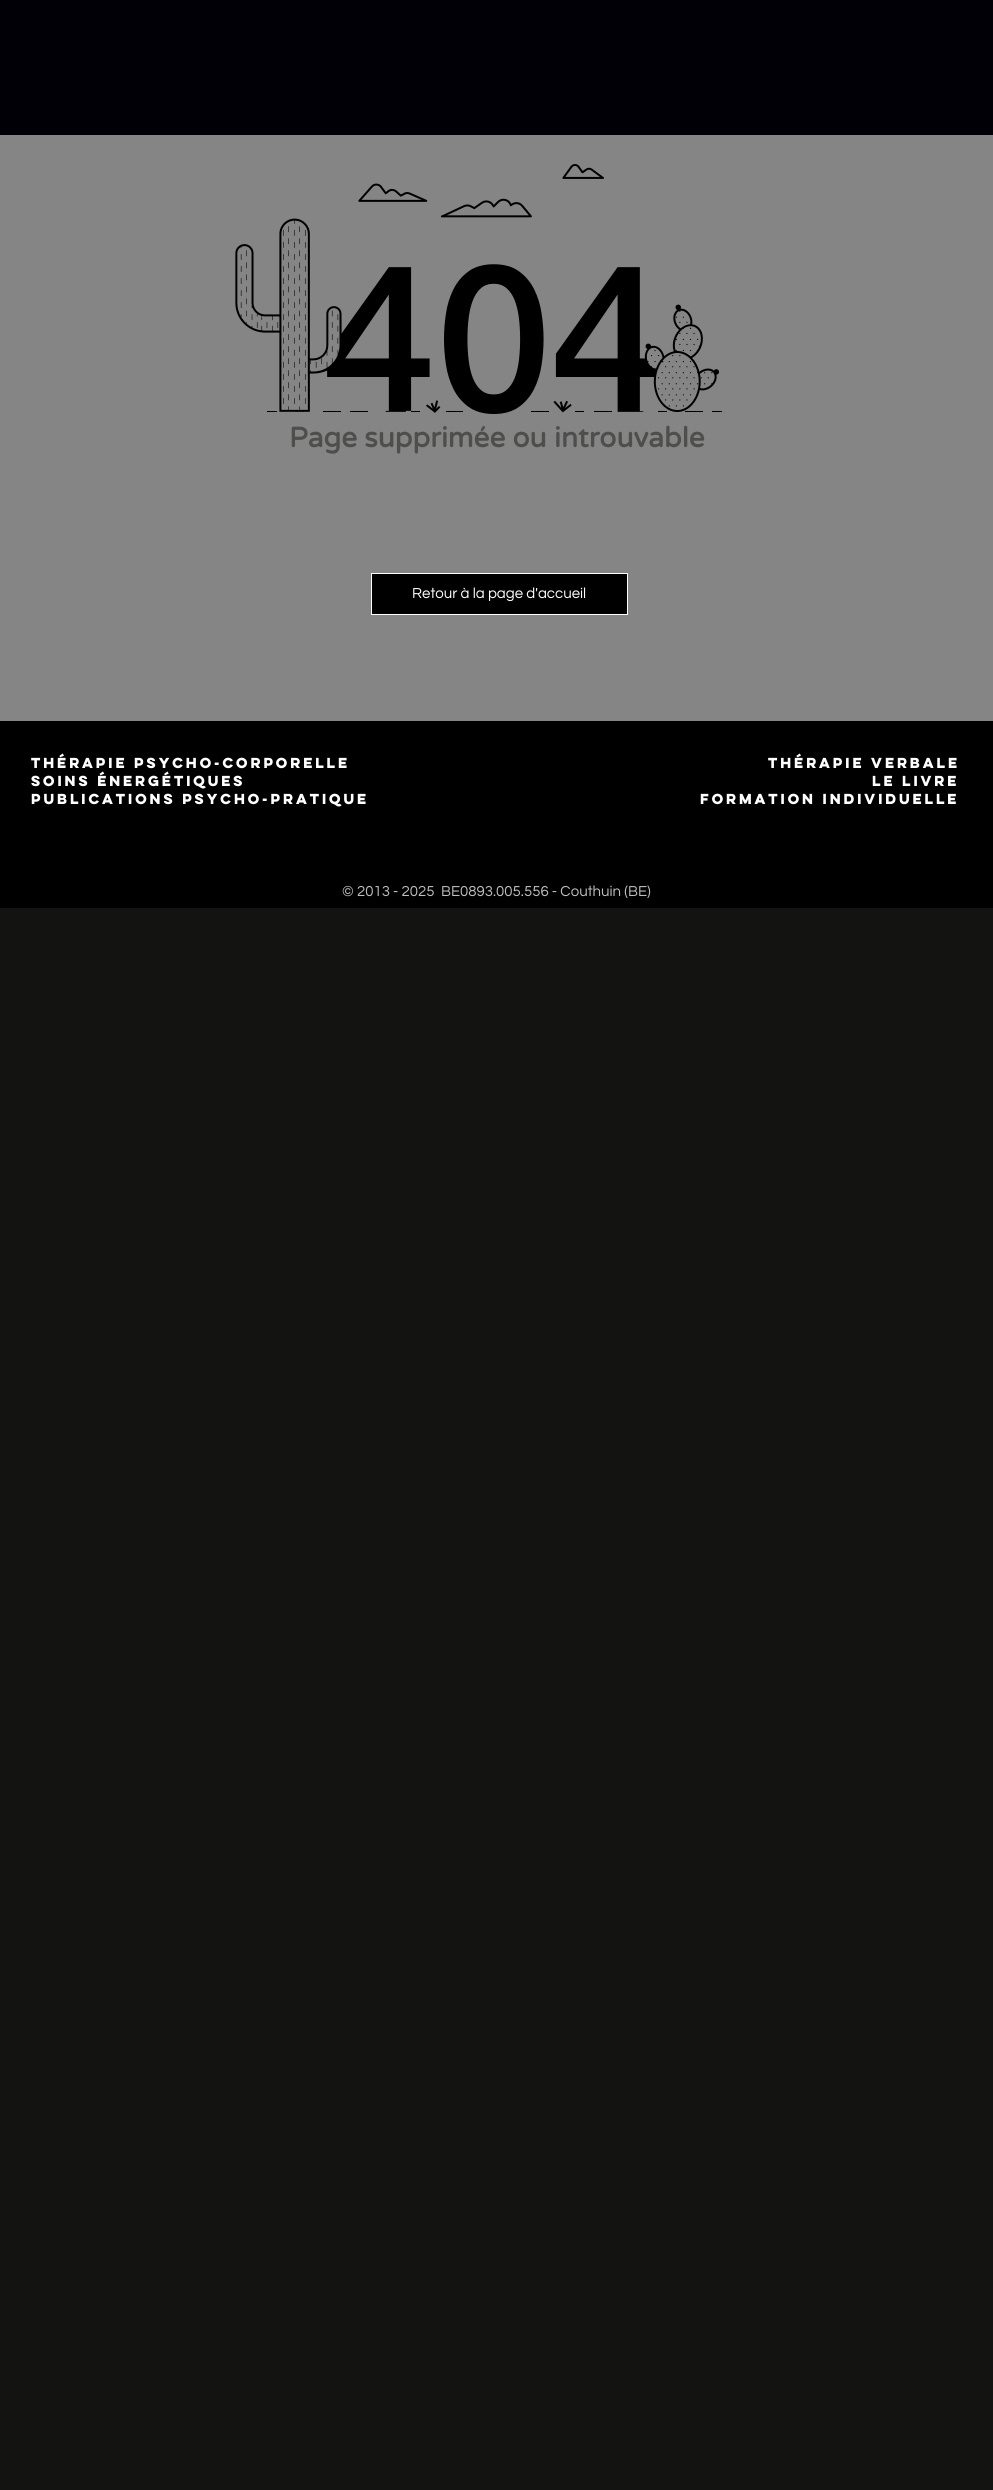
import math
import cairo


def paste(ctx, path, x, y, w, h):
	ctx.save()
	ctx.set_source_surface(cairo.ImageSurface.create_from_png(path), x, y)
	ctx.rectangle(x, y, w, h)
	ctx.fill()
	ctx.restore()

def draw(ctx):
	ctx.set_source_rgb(0.075, 0.075, 0.067)
	ctx.paint()
	ctx.set_source_rgb(0.008, 0, 0.031)
	ctx.rectangle(0, 0, 993, 135)
	ctx.fill()
	ctx.set_source_rgb(0.522, 0.522, 0.522)
	ctx.rectangle(0, 135, 993, 586)
	ctx.fill()
	paste(ctx, 'media/1.png', 235, 164, 487, 250)
	ctx.select_font_face('Varela Round', cairo.FONT_SLANT_NORMAL, cairo.FONT_WEIGHT_BOLD)
	ctx.set_font_size(28)
	ctx.set_source_rgb(0.306, 0.306, 0.298)
	ctx.move_to(289, 447)
	ctx.show_text('Page supprimée ou introuvable')
	ctx.set_source_rgb(0, 0, 0)
	ctx.rectangle(371.5, 573.5, 256, 41)
	ctx.fill_preserve()
	ctx.set_source_rgb(1, 1, 1)
	ctx.set_line_width(1)
	ctx.stroke()
	ctx.select_font_face('Questrial')
	ctx.set_font_size(15)
	ctx.move_to(412, 598)
	ctx.show_text('Retour à la page d\'accueil')
	ctx.set_source_rgb(0, 0, 0)
	ctx.rectangle(0, 721, 993, 187)
	ctx.fill()
	ctx.select_font_face('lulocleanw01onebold', cairo.FONT_SLANT_NORMAL, cairo.FONT_WEIGHT_BOLD)
	ctx.set_font_size(13)
	ctx.set_source_rgb(1, 1, 1)
	for x, y, s in [
		(31, 768, 'THÉRAPIE PSYCHO-CORPORELLE'),
		(31, 786, 'SOINS ÉNERGÉTIQUES'),
		(31, 804, 'PUBLICATIONS PSYCHO-PRATIQUE'),
		(768, 768, 'THÉRAPIE VERBALE'),
		(872, 786, 'LE LIVRE'),
		(700, 804, 'FORMATION INDIVIDUELLE'),
	]:
		ctx.move_to(x, y)
		ctx.show_text(s)
	ctx.select_font_face('Questrial')
	ctx.set_font_size(15)
	ctx.set_source_rgb(0.749, 0.749, 0.749)
	ctx.move_to(342, 896)
	ctx.show_text('© 2013 - 2025  BE0893.005.556 - Couthuin (BE)')


surface = cairo.ImageSurface(cairo.FORMAT_RGB24, 993, 2490)
ctx = cairo.Context(surface)
options = cairo.FontOptions()
options.set_hint_metrics(cairo.HINT_METRICS_OFF)
options.set_hint_style(cairo.HINT_STYLE_NONE)
ctx.set_font_options(options)
ctx.set_miter_limit(4)
draw(ctx)
surface.write_to_png('image.png')
